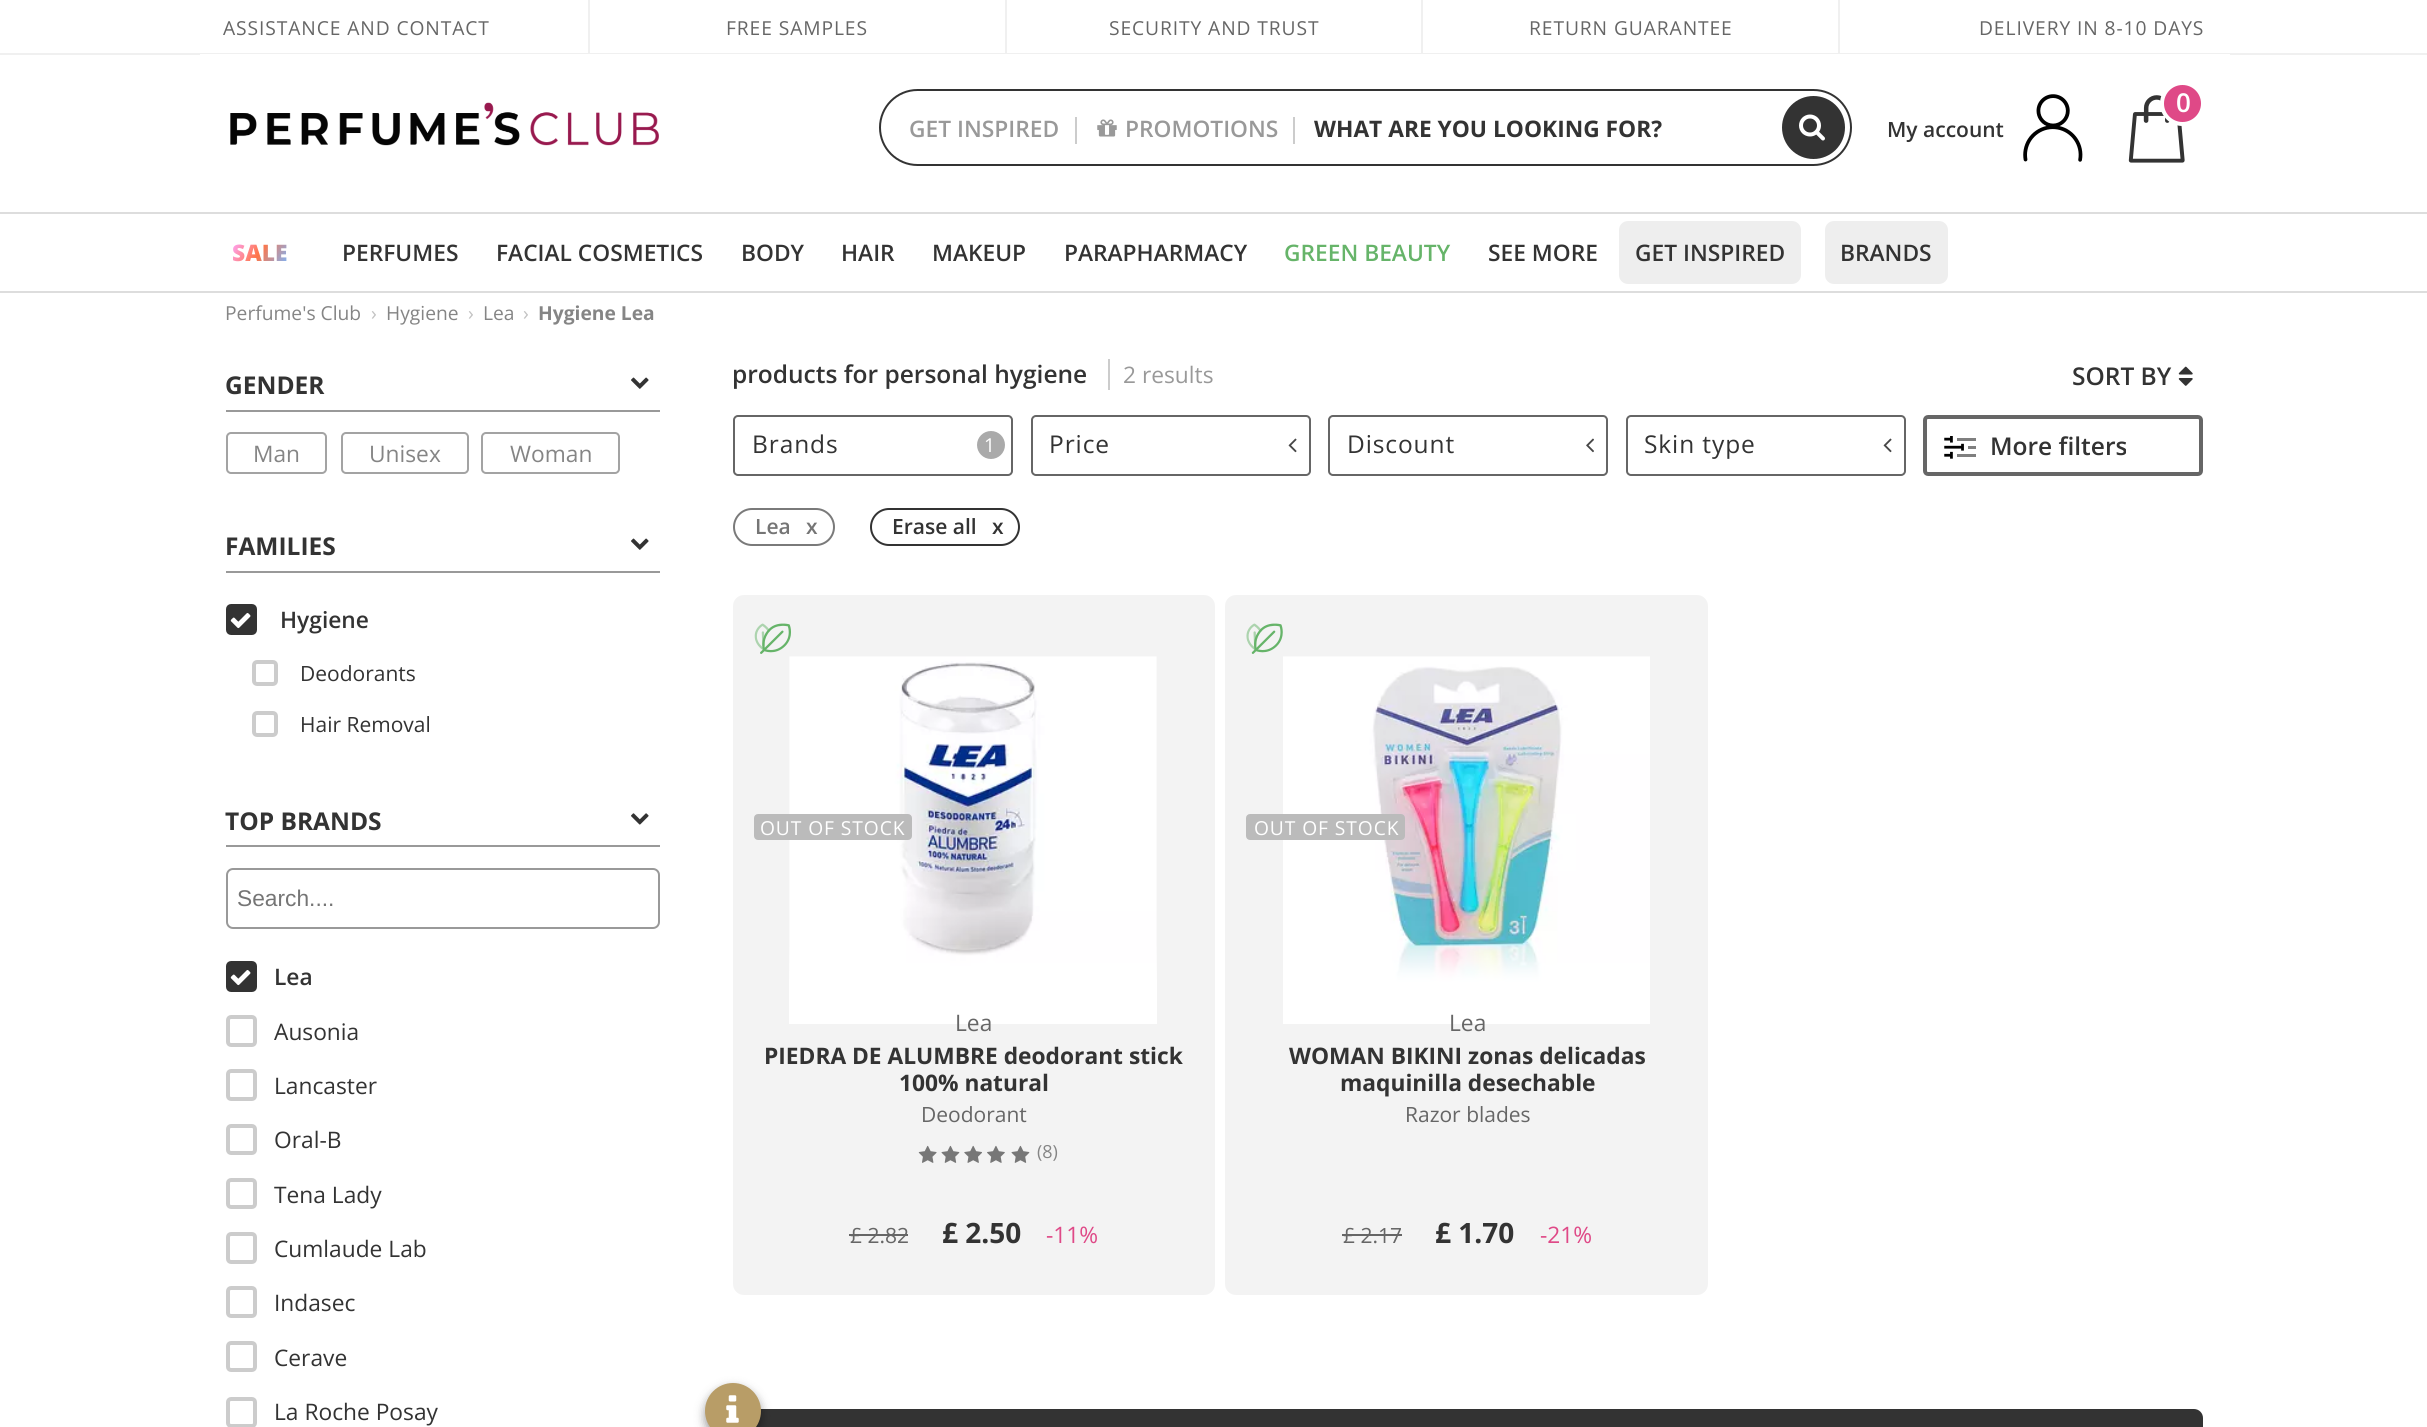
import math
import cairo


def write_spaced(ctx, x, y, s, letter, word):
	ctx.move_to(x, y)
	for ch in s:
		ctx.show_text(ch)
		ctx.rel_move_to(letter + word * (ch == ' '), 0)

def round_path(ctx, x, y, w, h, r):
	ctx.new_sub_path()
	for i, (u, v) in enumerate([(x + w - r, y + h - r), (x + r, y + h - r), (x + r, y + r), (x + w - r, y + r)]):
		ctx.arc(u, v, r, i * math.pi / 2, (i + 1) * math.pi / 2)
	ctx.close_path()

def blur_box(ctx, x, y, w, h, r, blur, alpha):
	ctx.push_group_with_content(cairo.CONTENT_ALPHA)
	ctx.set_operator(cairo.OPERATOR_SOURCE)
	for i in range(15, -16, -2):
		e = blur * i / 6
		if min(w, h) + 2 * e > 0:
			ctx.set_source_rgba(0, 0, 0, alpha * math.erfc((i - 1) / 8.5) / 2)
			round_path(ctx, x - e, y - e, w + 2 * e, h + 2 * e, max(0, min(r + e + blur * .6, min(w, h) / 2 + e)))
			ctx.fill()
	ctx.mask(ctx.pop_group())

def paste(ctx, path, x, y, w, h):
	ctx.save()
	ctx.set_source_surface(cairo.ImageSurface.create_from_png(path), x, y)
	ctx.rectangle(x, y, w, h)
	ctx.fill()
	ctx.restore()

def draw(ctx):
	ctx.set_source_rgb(1, 1, 1)
	ctx.paint()
	ctx.set_source_rgb(0.941, 0.941, 0.941)
	ctx.rectangle(0, 53, 2427, 2)
	ctx.fill()
	ctx.select_font_face('Open Sans')
	ctx.set_font_size(19.25)
	ctx.set_source_rgb(0.4, 0.4, 0.4)
	write_spaced(ctx, 223, 35, 'ASSISTANCE AND CONTACT', 0.9, 0)
	ctx.set_source_rgb(0.941, 0.941, 0.941)
	ctx.rectangle(588, 0, 2, 54)
	ctx.fill()
	ctx.set_source_rgb(0.4, 0.4, 0.4)
	write_spaced(ctx, 726, 35, 'FREE SAMPLES', 0.9, 0)
	ctx.set_source_rgb(0.941, 0.941, 0.941)
	ctx.rectangle(1005, 0, 2, 54)
	ctx.fill()
	ctx.set_source_rgb(0.4, 0.4, 0.4)
	write_spaced(ctx, 1109, 35, 'SECURITY AND TRUST', 0.9, 0)
	ctx.set_source_rgb(0.941, 0.941, 0.941)
	ctx.rectangle(1421, 0, 2, 54)
	ctx.fill()
	ctx.set_source_rgb(0.4, 0.4, 0.4)
	write_spaced(ctx, 1529, 35, 'RETURN GUARANTEE', 0.9, 0)
	ctx.set_source_rgb(0.941, 0.941, 0.941)
	ctx.rectangle(1838, 0, 2, 54)
	ctx.fill()
	ctx.set_source_rgb(0.4, 0.4, 0.4)
	write_spaced(ctx, 1979, 35, 'DELIVERY IN 8-10 DAYS', 0.9, 0)
	ctx.set_source_rgb(1, 1, 1)
	ctx.rectangle(200, 54, 2030, 1)
	ctx.fill()
	paste(ctx, 'media/1.png', 230, 102, 429, 44)
	round_path(ctx, 880, 90, 971, 75, 37.5)
	ctx.set_source_rgb(0.2, 0.2, 0.2)
	ctx.stroke()
	ctx.set_source_rgb(0.8, 0.8, 0.8)
	ctx.rectangle(1075, 117, 2, 27)
	ctx.fill()
	ctx.rectangle(1293, 117, 2, 27)
	ctx.fill()
	ctx.select_font_face('Open Sans SemiBold')
	ctx.set_font_size(22.75)
	ctx.set_source_rgb(0.6, 0.6, 0.6)
	ctx.move_to(909, 137)
	ctx.show_text('GET INSPIRED')
	paste(ctx, 'media/2.png', 1097, 119, 20, 18)
	ctx.move_to(1125, 137)
	ctx.show_text('PROMOTIONS')
	ctx.select_font_face('Open Sans', cairo.FONT_SLANT_NORMAL, cairo.FONT_WEIGHT_BOLD)
	ctx.set_source_rgb(0.2, 0.2, 0.2)
	ctx.move_to(1314, 137)
	ctx.show_text('WHAT ARE YOU LOOKING FOR?')
	ctx.new_path()
	ctx.arc(1813.5, 127.5, 31.5, 0, 2 * math.pi)
	ctx.fill()
	paste(ctx, 'media/3.png', 1799, 114, 26, 27)
	paste(ctx, 'media/4.png', 2128, 95, 57, 68)
	ctx.set_source_rgb(0.875, 0.286, 0.529)
	ctx.arc(2182.5, 103.5, 20.5, 0, 2 * math.pi)
	ctx.fill_preserve()
	ctx.set_source_rgb(1, 1, 1)
	ctx.set_line_width(4)
	ctx.stroke()
	ctx.select_font_face('Open Sans SemiBold')
	ctx.set_font_size(26)
	write_spaced(ctx, 2176, 112, '0', -2, 0)
	ctx.set_font_size(21)
	ctx.set_source_rgb(0.2, 0.2, 0.2)
	ctx.move_to(1887, 137)
	ctx.show_text('My account')
	paste(ctx, 'media/5.png', 2023, 94, 60, 68)
	ctx.set_source_rgb(0.867, 0.867, 0.867)
	ctx.rectangle(0, 212, 2427, 2)
	ctx.fill()
	ctx.rectangle(0, 291, 2427, 2)
	ctx.fill()
	ctx.select_font_face('Open Sans ExtraBold')
	ctx.set_font_size(22.75)
	gradient = cairo.LinearGradient(213, 225, 306, 279)
	gradient.add_color_stop_rgba(0, 0.808, 0.941, 0.773, 1)
	gradient.add_color_stop_rgba(0.25, 0.996, 0.635, 0.945, 1)
	gradient.add_color_stop_rgba(0.5, 1, 0.459, 0.278, 1)
	gradient.add_color_stop_rgba(0.75, 0.541, 0.678, 0.902, 1)
	gradient.add_color_stop_rgba(1, 0.675, 0.867, 0.796, 1)
	ctx.set_source(gradient)
	ctx.move_to(232, 261)
	ctx.show_text('SALE')
	ctx.select_font_face('Open Sans SemiBold')
	ctx.set_source_rgb(0.2, 0.2, 0.2)
	for x, y, s in [
		(342, 261, 'PERFUMES'),
		(496, 261, 'FACIAL COSMETICS'),
		(741, 261, 'BODY'),
		(841, 261, 'HAIR'),
		(932, 261, 'MAKEUP'),
		(1064, 261, 'PARAPHARMACY'),
	]:
		ctx.move_to(x, y)
		ctx.show_text(s)
	ctx.set_source_rgb(0.4, 0.706, 0.412)
	ctx.move_to(1284, 261)
	ctx.show_text('GREEN BEAUTY')
	ctx.set_source_rgb(0.2, 0.2, 0.2)
	ctx.move_to(1488, 261)
	ctx.show_text('SEE MORE')
	ctx.set_source_rgb(0.933, 0.933, 0.933)
	round_path(ctx, 1619, 221, 182, 63, 9)
	ctx.fill()
	ctx.set_source_rgb(0.2, 0.2, 0.2)
	ctx.move_to(1635, 261)
	ctx.show_text('GET INSPIRED')
	ctx.set_source_rgb(0.933, 0.933, 0.933)
	round_path(ctx, 1825, 221, 123, 63, 9)
	ctx.fill()
	ctx.set_source_rgb(0.2, 0.2, 0.2)
	ctx.move_to(1840, 261)
	ctx.show_text('BRANDS')
	ctx.select_font_face('Open Sans')
	ctx.set_font_size(19.25)
	ctx.set_source_rgb(0.522, 0.522, 0.522)
	ctx.move_to(225, 320)
	ctx.show_text('Perfume\'s Club')
	ctx.set_source_rgb(0.761, 0.761, 0.761)
	ctx.move_to(371, 320)
	ctx.show_text('›')
	ctx.set_source_rgb(0.522, 0.522, 0.522)
	ctx.move_to(386, 320)
	ctx.show_text('Hygiene')
	ctx.set_source_rgb(0.761, 0.761, 0.761)
	ctx.move_to(468, 320)
	ctx.show_text('›')
	ctx.set_source_rgb(0.522, 0.522, 0.522)
	ctx.move_to(483, 320)
	ctx.show_text('Lea')
	ctx.set_source_rgb(0.761, 0.761, 0.761)
	ctx.move_to(523, 320)
	ctx.show_text('›')
	ctx.select_font_face('Open Sans', cairo.FONT_SLANT_NORMAL, cairo.FONT_WEIGHT_BOLD)
	ctx.set_source_rgb(0.522, 0.522, 0.522)
	ctx.move_to(538, 320)
	ctx.show_text('Hygiene Lea')
	ctx.set_source_rgb(0.6, 0.6, 0.6)
	ctx.rectangle(226, 410, 434, 2)
	ctx.fill()
	ctx.set_font_size(24.5)
	ctx.set_source_rgb(0.2, 0.2, 0.2)
	ctx.move_to(225, 394)
	ctx.show_text('GENDER')
	paste(ctx, 'media/6.png', 631, 377, 18, 12)
	round_path(ctx, 227, 433, 99, 40, 4)
	ctx.set_source_rgb(0.639, 0.639, 0.639)
	ctx.set_line_width(2)
	ctx.stroke()
	ctx.select_font_face('Open Sans')
	ctx.set_font_size(22.75)
	ctx.set_source_rgb(0.522, 0.522, 0.522)
	ctx.move_to(253, 462)
	ctx.show_text('Man')
	round_path(ctx, 342, 433, 126, 40, 4)
	ctx.set_source_rgb(0.639, 0.639, 0.639)
	ctx.stroke()
	ctx.set_source_rgb(0.522, 0.522, 0.522)
	ctx.move_to(369, 462)
	ctx.show_text('Unisex')
	round_path(ctx, 482, 433, 137, 40, 4)
	ctx.set_source_rgb(0.639, 0.639, 0.639)
	ctx.stroke()
	ctx.set_source_rgb(0.522, 0.522, 0.522)
	ctx.move_to(510, 462)
	ctx.show_text('Woman')
	ctx.set_source_rgb(0.6, 0.6, 0.6)
	ctx.rectangle(226, 571, 434, 2)
	ctx.fill()
	ctx.select_font_face('Open Sans', cairo.FONT_SLANT_NORMAL, cairo.FONT_WEIGHT_BOLD)
	ctx.set_font_size(24.5)
	ctx.set_source_rgb(0.2, 0.2, 0.2)
	ctx.move_to(225, 555)
	ctx.show_text('FAMILIES')
	paste(ctx, 'media/6.png', 631, 538, 18, 12)
	round_path(ctx, 228, 606, 27, 27, 3)
	ctx.fill_preserve()
	ctx.set_line_width(4)
	ctx.stroke()
	paste(ctx, 'media/7.png', 230, 613, 21, 16)
	ctx.select_font_face('Open Sans SemiBold')
	ctx.set_font_size(22.75)
	ctx.move_to(280, 628)
	ctx.show_text('Hygiene')
	round_path(ctx, 254, 662, 22, 22, 3)
	ctx.set_source_rgb(0.8, 0.8, 0.8)
	ctx.stroke()
	ctx.select_font_face('Open Sans')
	ctx.set_font_size(21)
	ctx.set_source_rgb(0.2, 0.2, 0.2)
	ctx.move_to(300, 681)
	ctx.show_text('Deodorants')
	round_path(ctx, 254, 713, 22, 22, 3)
	ctx.set_source_rgb(0.8, 0.8, 0.8)
	ctx.stroke()
	ctx.set_source_rgb(0.2, 0.2, 0.2)
	ctx.move_to(300, 732)
	ctx.show_text('Hair Removal')
	ctx.set_source_rgb(0.6, 0.6, 0.6)
	ctx.rectangle(226, 845, 434, 2)
	ctx.fill()
	ctx.select_font_face('Open Sans', cairo.FONT_SLANT_NORMAL, cairo.FONT_WEIGHT_BOLD)
	ctx.set_font_size(24.5)
	ctx.set_source_rgb(0.2, 0.2, 0.2)
	ctx.move_to(225, 830)
	ctx.show_text('TOP BRANDS')
	paste(ctx, 'media/8.png', 631, 813, 18, 12)
	round_path(ctx, 227, 869, 432, 59, 6)
	ctx.set_source_rgb(0.6, 0.6, 0.6)
	ctx.set_line_width(2)
	ctx.stroke()
	ctx.select_font_face('Liberation Sans')
	ctx.set_font_size(22.75)
	ctx.set_source_rgb(0.459, 0.459, 0.459)
	ctx.move_to(237, 906)
	ctx.show_text('Search....')
	ctx.set_source_rgb(0.2, 0.2, 0.2)
	round_path(ctx, 228, 963, 27, 27, 3)
	ctx.fill_preserve()
	ctx.set_line_width(4)
	ctx.stroke()
	paste(ctx, 'media/7.png', 230, 970, 21, 16)
	ctx.select_font_face('Open Sans SemiBold')
	ctx.move_to(274, 985)
	ctx.show_text('Lea')
	round_path(ctx, 228, 1017, 27, 28, 3)
	ctx.set_source_rgb(0.8, 0.8, 0.8)
	ctx.stroke()
	ctx.select_font_face('Open Sans')
	ctx.set_source_rgb(0.2, 0.2, 0.2)
	ctx.move_to(274, 1040)
	ctx.show_text('Ausonia')
	round_path(ctx, 228, 1071, 27, 28, 3)
	ctx.set_source_rgb(0.8, 0.8, 0.8)
	ctx.stroke()
	ctx.set_source_rgb(0.2, 0.2, 0.2)
	ctx.move_to(274, 1094)
	ctx.show_text('Lancaster')
	round_path(ctx, 228, 1126, 27, 27, 3)
	ctx.set_source_rgb(0.8, 0.8, 0.8)
	ctx.stroke()
	ctx.set_source_rgb(0.2, 0.2, 0.2)
	ctx.move_to(274, 1148)
	ctx.show_text('Oral-B')
	round_path(ctx, 228, 1180, 27, 27, 3)
	ctx.set_source_rgb(0.8, 0.8, 0.8)
	ctx.stroke()
	ctx.set_source_rgb(0.2, 0.2, 0.2)
	ctx.move_to(274, 1203)
	ctx.show_text('Tena Lady')
	round_path(ctx, 228, 1234, 27, 28, 3)
	ctx.set_source_rgb(0.8, 0.8, 0.8)
	ctx.stroke()
	ctx.set_source_rgb(0.2, 0.2, 0.2)
	ctx.move_to(274, 1257)
	ctx.show_text('Cumlaude Lab')
	round_path(ctx, 228, 1288, 27, 28, 3)
	ctx.set_source_rgb(0.8, 0.8, 0.8)
	ctx.stroke()
	ctx.set_source_rgb(0.2, 0.2, 0.2)
	ctx.move_to(274, 1311)
	ctx.show_text('Indasec')
	round_path(ctx, 228, 1343, 27, 27, 3)
	ctx.set_source_rgb(0.8, 0.8, 0.8)
	ctx.stroke()
	ctx.set_source_rgb(0.2, 0.2, 0.2)
	ctx.move_to(274, 1366)
	ctx.show_text('Cerave')
	round_path(ctx, 228, 1399, 27, 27, 3)
	ctx.set_source_rgb(0.8, 0.8, 0.8)
	ctx.stroke()
	ctx.set_source_rgb(0.2, 0.2, 0.2)
	ctx.move_to(274, 1420)
	ctx.show_text('La Roche Posay')
	ctx.select_font_face('Open Sans SemiBold')
	ctx.set_font_size(24.5)
	ctx.move_to(732, 383)
	ctx.show_text('products for personal hygiene')
	ctx.select_font_face('Open Sans')
	ctx.set_font_size(22.75)
	ctx.set_source_rgb(0.6, 0.6, 0.6)
	ctx.move_to(1123, 383)
	ctx.show_text('2 results')
	ctx.set_source_rgb(0.8, 0.8, 0.8)
	ctx.rectangle(1108, 359, 2, 31)
	ctx.fill()
	ctx.select_font_face('Open Sans SemiBold')
	ctx.set_font_size(24.5)
	ctx.set_source_rgb(0.2, 0.2, 0.2)
	ctx.move_to(2072, 385)
	ctx.show_text('SORT BY')
	paste(ctx, 'media/9.png', 2178, 366, 15, 20)
	round_path(ctx, 734, 416, 278, 59, 4)
	ctx.set_source_rgb(0.4, 0.4, 0.4)
	ctx.set_line_width(2)
	ctx.stroke()
	ctx.select_font_face('Open Sans')
	ctx.set_source_rgb(0.2, 0.2, 0.2)
	write_spaced(ctx, 752, 453, 'Brands', 0.9, 0)
	ctx.set_source_rgb(0.667, 0.667, 0.667)
	ctx.new_path()
	ctx.arc(991, 445, 14, 0, 2 * math.pi)
	ctx.fill()
	ctx.set_font_size(19.25)
	ctx.set_source_rgb(1, 1, 1)
	write_spaced(ctx, 984, 452, '1', 0.9, 0)
	round_path(ctx, 1032, 416, 278, 59, 4)
	ctx.set_source_rgb(0.4, 0.4, 0.4)
	ctx.stroke()
	ctx.set_font_size(24.5)
	ctx.set_source_rgb(0.2, 0.2, 0.2)
	write_spaced(ctx, 1049, 453, 'Price', 0.9, 0)
	paste(ctx, 'media/10.png', 1288, 438, 9, 15)
	round_path(ctx, 1329, 416, 278, 59, 4)
	ctx.set_source_rgb(0.4, 0.4, 0.4)
	ctx.stroke()
	ctx.set_source_rgb(0.2, 0.2, 0.2)
	write_spaced(ctx, 1347, 453, 'Discount', 0.9, 0)
	paste(ctx, 'media/11.png', 1586, 438, 8, 15)
	round_path(ctx, 1627, 416, 278, 59, 4)
	ctx.set_source_rgb(0.4, 0.4, 0.4)
	ctx.stroke()
	ctx.set_source_rgb(0.2, 0.2, 0.2)
	write_spaced(ctx, 1644, 453, 'Skin type', 0.9, 0)
	paste(ctx, 'media/10.png', 1883, 438, 9, 15)
	round_path(ctx, 1925, 417, 276, 57, 3)
	ctx.set_source_rgb(0.4, 0.4, 0.4)
	ctx.set_line_width(4)
	ctx.stroke()
	paste(ctx, 'media/12.png', 1944, 436, 32, 23)
	ctx.select_font_face('Open Sans SemiBold')
	ctx.set_source_rgb(0.2, 0.2, 0.2)
	ctx.move_to(1990, 455)
	ctx.show_text('More filters')
	round_path(ctx, 734, 509, 100, 36, 18)
	ctx.set_source_rgb(0.478, 0.478, 0.478)
	ctx.set_line_width(2)
	ctx.stroke()
	ctx.set_font_size(21)
	ctx.set_source_rgb(0.459, 0.459, 0.459)
	ctx.move_to(755, 534)
	ctx.show_text('Lea')
	ctx.move_to(806, 534)
	ctx.show_text('x')
	round_path(ctx, 871, 509, 148, 36, 18)
	ctx.set_source_rgb(0.2, 0.2, 0.2)
	ctx.stroke()
	ctx.move_to(892, 534)
	ctx.show_text('Erase all')
	ctx.move_to(992, 534)
	ctx.show_text('x')
	ctx.set_source_rgb(0.953, 0.953, 0.953)
	round_path(ctx, 734, 596, 480, 698, 10)
	ctx.fill_preserve()
	ctx.stroke()
	paste(ctx, 'media/13.png', 754, 623, 37, 31)
	paste(ctx, 'media/14.png', 789, 656, 368, 327)
	gradient = cairo.LinearGradient(973, 943, 973, 1024)
	gradient.add_color_stop_rgba(0, 1, 1, 1, 0)
	gradient.add_color_stop_rgba(0.5, 1, 1, 1, 1)
	gradient.add_color_stop_rgba(1, 1, 1, 1, 1)
	ctx.set_source(gradient)
	ctx.rectangle(789, 945, 368, 79)
	ctx.fill()
	ctx.set_source_rgb(0.733, 0.733, 0.733)
	round_path(ctx, 755, 815, 156, 24, 3)
	ctx.fill_preserve()
	ctx.stroke()
	ctx.select_font_face('Open Sans')
	ctx.set_font_size(19.25)
	ctx.set_source_rgb(1, 1, 1)
	write_spaced(ctx, 760, 835, 'OUT OF STOCK', 0.9, 0)
	ctx.set_font_size(22.75)
	ctx.set_source_rgb(0.4, 0.4, 0.4)
	ctx.move_to(955, 1031)
	ctx.show_text('Lea')
	ctx.select_font_face('Open Sans', cairo.FONT_SLANT_NORMAL, cairo.FONT_WEIGHT_BOLD)
	ctx.set_source_rgb(0.2, 0.2, 0.2)
	ctx.move_to(764, 1064)
	ctx.show_text('PIEDRA DE ALUMBRE deodorant stick')
	ctx.move_to(899, 1091)
	ctx.show_text('100% natural')
	ctx.select_font_face('Open Sans')
	ctx.set_font_size(21)
	ctx.set_source_rgb(0.4, 0.4, 0.4)
	ctx.move_to(921, 1122)
	ctx.show_text('Deodorant')
	paste(ctx, 'media/15.png', 918, 1145, 19, 18)
	paste(ctx, 'media/16.png', 941, 1145, 19, 18)
	paste(ctx, 'media/17.png', 964, 1145, 18, 18)
	paste(ctx, 'media/18.png', 987, 1145, 18, 18)
	paste(ctx, 'media/16.png', 1011, 1145, 19, 18)
	ctx.set_font_size(18)
	ctx.set_source_rgb(0.522, 0.522, 0.522)
	ctx.move_to(1037, 1158)
	ctx.show_text('(8)')
	ctx.set_font_size(21)
	ctx.set_source_rgb(0.4, 0.4, 0.4)
	ctx.move_to(850, 1243)
	ctx.show_text('£ 2.82')
	ctx.rectangle(849, 1234, 59, 2)
	ctx.fill()
	ctx.select_font_face('Open Sans', cairo.FONT_SLANT_NORMAL, cairo.FONT_WEIGHT_BOLD)
	ctx.set_font_size(28)
	ctx.set_source_rgb(0.2, 0.2, 0.2)
	ctx.move_to(942, 1243)
	ctx.show_text('£ 2.50')
	ctx.select_font_face('Open Sans')
	ctx.set_font_size(22.75)
	ctx.set_source_rgb(0.875, 0.286, 0.529)
	ctx.move_to(1046, 1243)
	ctx.show_text('-11%')
	ctx.set_source_rgb(0.953, 0.953, 0.953)
	round_path(ctx, 1226, 596, 481, 698, 10)
	ctx.fill_preserve()
	ctx.stroke()
	paste(ctx, 'media/19.png', 1246, 623, 37, 31)
	paste(ctx, 'media/20.png', 1283, 656, 367, 327)
	gradient = cairo.LinearGradient(1467, 943, 1467, 1024)
	gradient.add_color_stop_rgba(0, 1, 1, 1, 0)
	gradient.add_color_stop_rgba(0.5, 1, 1, 1, 1)
	gradient.add_color_stop_rgba(1, 1, 1, 1, 1)
	ctx.set_source(gradient)
	ctx.rectangle(1283, 944, 367, 80)
	ctx.fill()
	ctx.set_source_rgb(0.733, 0.733, 0.733)
	round_path(ctx, 1247, 815, 157, 24, 3)
	ctx.fill_preserve()
	ctx.stroke()
	ctx.set_font_size(19.25)
	ctx.set_source_rgb(1, 1, 1)
	write_spaced(ctx, 1254, 835, 'OUT OF STOCK', 0.9, 0)
	ctx.set_font_size(22.75)
	ctx.set_source_rgb(0.4, 0.4, 0.4)
	ctx.move_to(1449, 1031)
	ctx.show_text('Lea')
	ctx.select_font_face('Open Sans', cairo.FONT_SLANT_NORMAL, cairo.FONT_WEIGHT_BOLD)
	ctx.set_source_rgb(0.2, 0.2, 0.2)
	ctx.move_to(1289, 1064)
	ctx.show_text('WOMAN BIKINI zonas delicadas')
	ctx.move_to(1340, 1091)
	ctx.show_text('maquinilla desechable')
	ctx.select_font_face('Open Sans')
	ctx.set_font_size(21)
	ctx.set_source_rgb(0.4, 0.4, 0.4)
	ctx.move_to(1405, 1122)
	ctx.show_text('Razor blades')
	ctx.move_to(1343, 1243)
	ctx.show_text('£ 2.17')
	ctx.rectangle(1342, 1234, 60, 2)
	ctx.fill()
	ctx.select_font_face('Open Sans', cairo.FONT_SLANT_NORMAL, cairo.FONT_WEIGHT_BOLD)
	ctx.set_font_size(28)
	ctx.set_source_rgb(0.2, 0.2, 0.2)
	ctx.move_to(1435, 1243)
	ctx.show_text('£ 1.70')
	ctx.select_font_face('Open Sans')
	ctx.set_font_size(22.75)
	ctx.set_source_rgb(0.875, 0.286, 0.529)
	ctx.move_to(1540, 1243)
	ctx.show_text('-21%')
	ctx.set_source_rgb(0.2, 0.2, 0.2)
	round_path(ctx, 733, 1409, 1470, 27, 9)
	ctx.fill()
	ctx.set_source_rgb(0, 0, 0)
	blur_box(ctx, 705, 1388, 56, 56, 28, 5, 0.4)
	ctx.set_source_rgb(0.722, 0.616, 0.404)
	ctx.arc(733, 1411, 28, 0, 2 * math.pi)
	ctx.fill()
	paste(ctx, 'media/21.png', 726, 1395, 13, 28)


surface = cairo.ImageSurface(cairo.FORMAT_RGB24, 2427, 1427)
ctx = cairo.Context(surface)
options = cairo.FontOptions()
options.set_hint_metrics(cairo.HINT_METRICS_OFF)
options.set_hint_style(cairo.HINT_STYLE_NONE)
ctx.set_font_options(options)
ctx.set_miter_limit(4)
draw(ctx)
surface.write_to_png('image.png')
